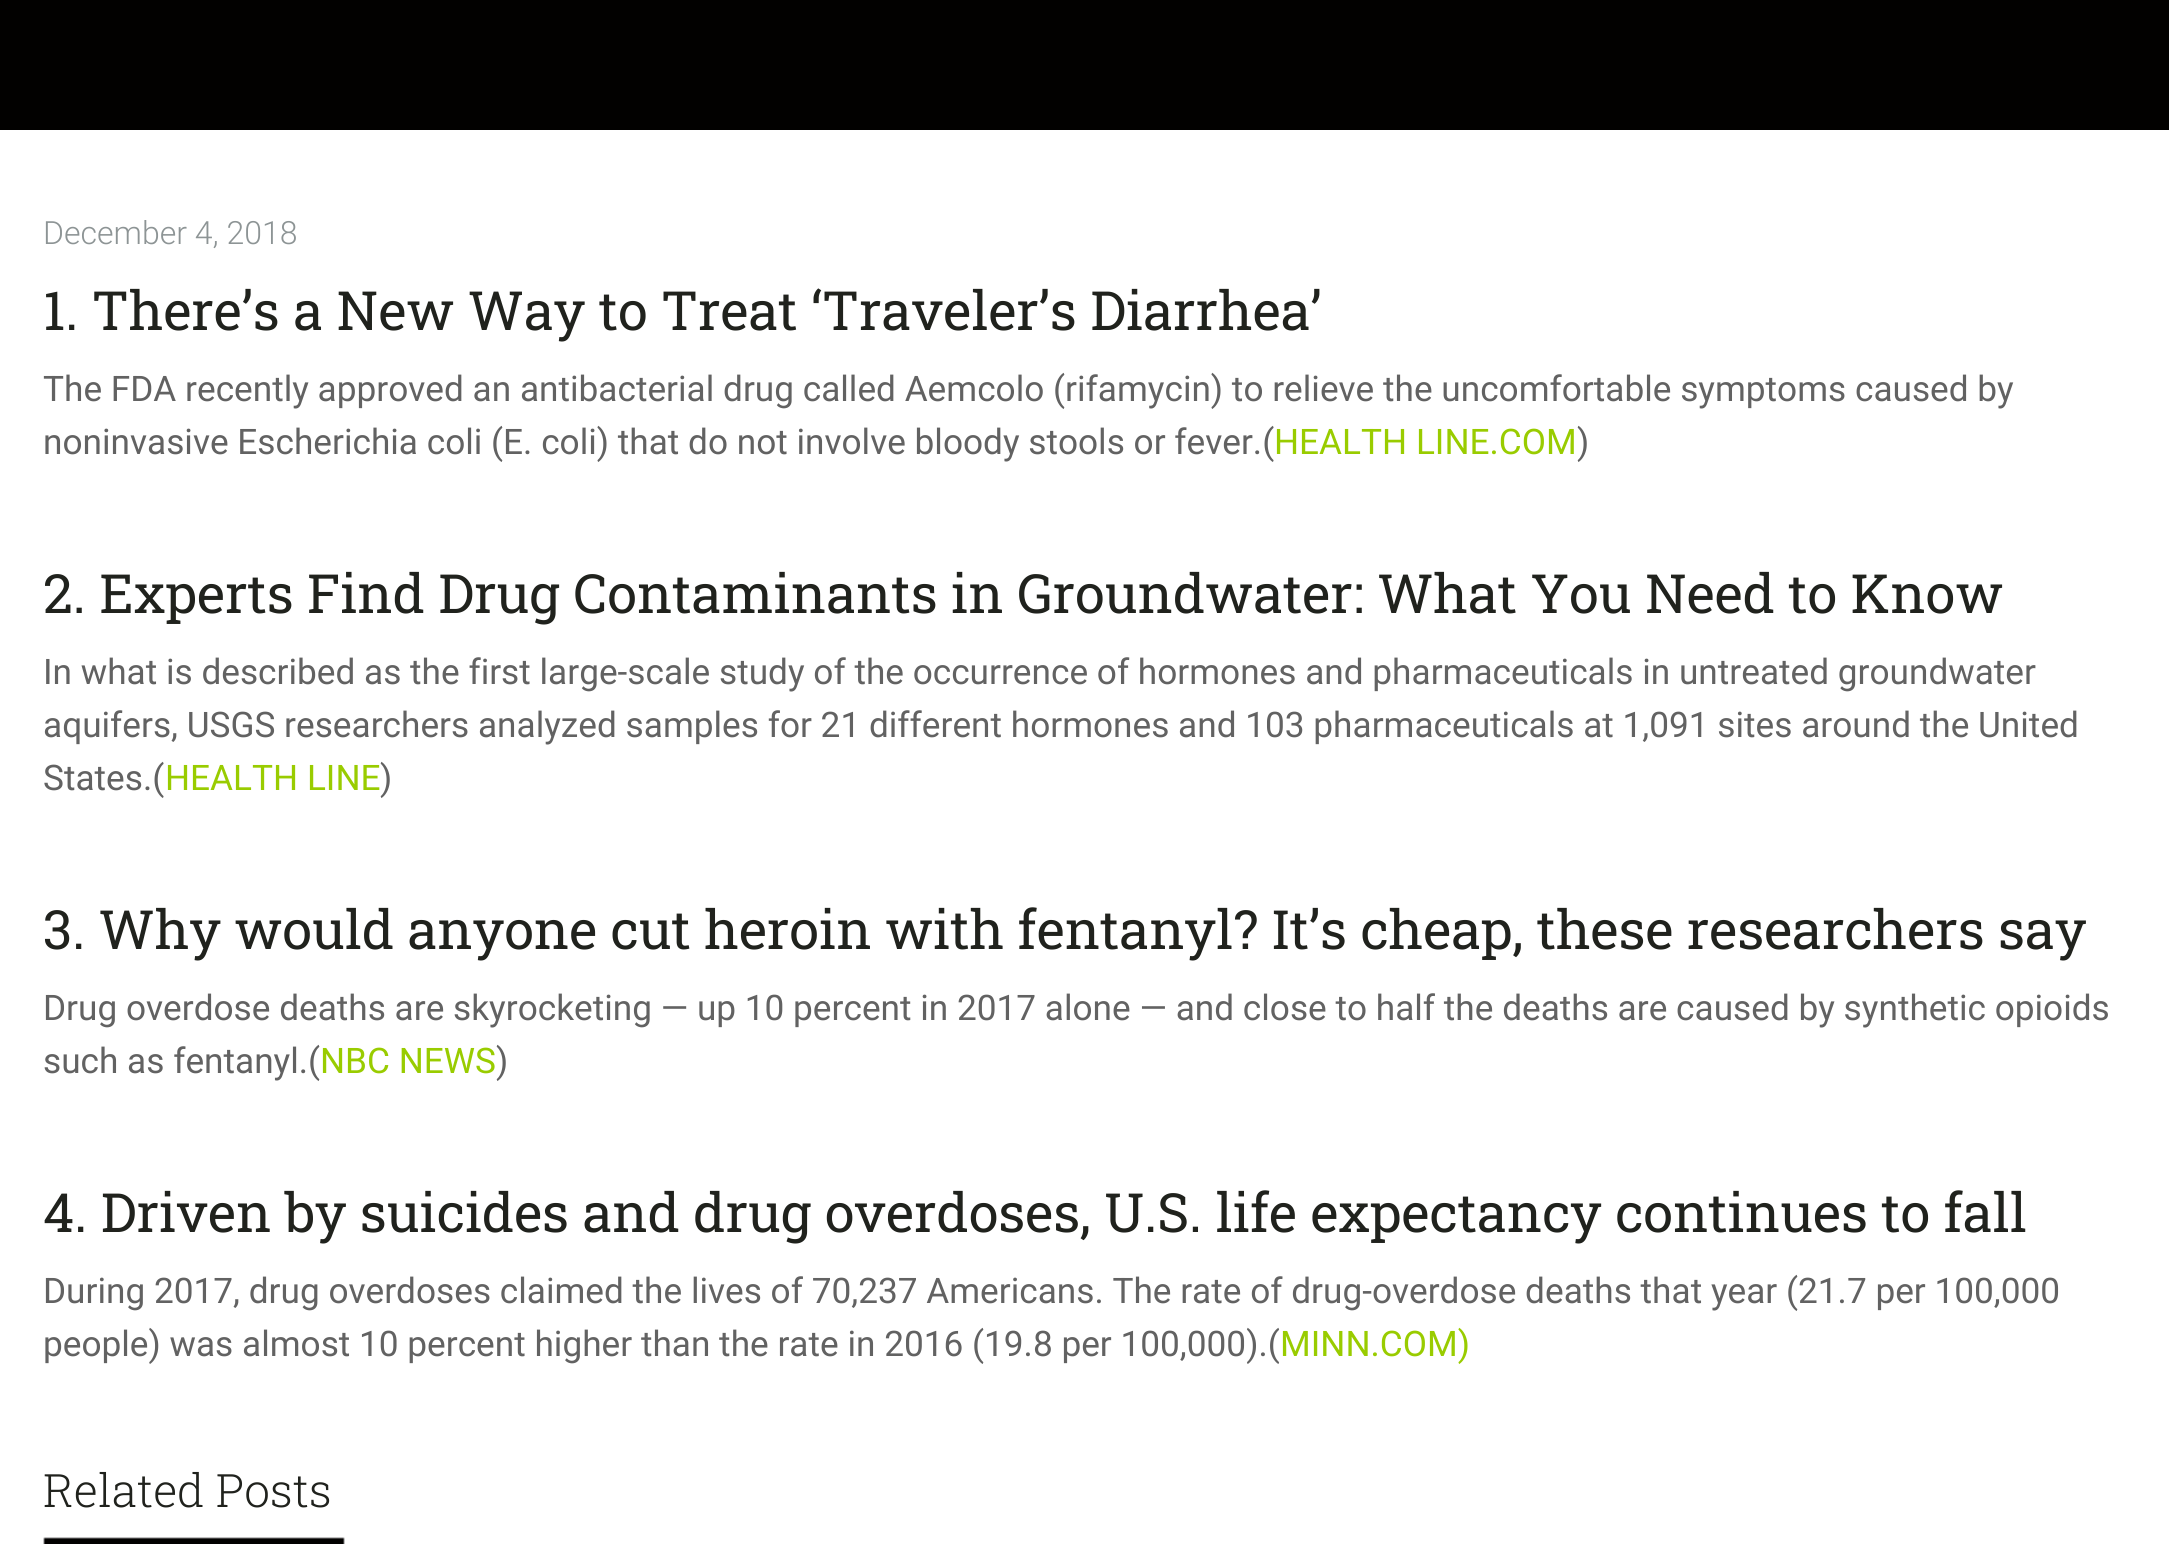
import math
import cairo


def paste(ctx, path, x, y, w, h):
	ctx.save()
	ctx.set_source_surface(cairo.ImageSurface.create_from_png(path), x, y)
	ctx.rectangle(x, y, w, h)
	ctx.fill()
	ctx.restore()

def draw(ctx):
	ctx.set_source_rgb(1, 1, 1)
	ctx.paint()
	ctx.set_source_rgb(0.008, 0.004, 0)
	ctx.rectangle(0, 0, 2169, 130)
	ctx.fill()
	ctx.select_font_face('Roboto Light')
	ctx.set_font_size(32)
	ctx.set_source_rgb(0.553, 0.58, 0.584)
	ctx.move_to(43, 244)
	ctx.show_text('December 4, 2018')
	ctx.select_font_face('Roboto Slab')
	ctx.set_font_size(54)
	ctx.set_source_rgb(0.125, 0.133, 0.114)
	ctx.move_to(43, 330)
	ctx.show_text('1. There’s a New Way to Treat ‘Traveler’s Diarrhea’')
	ctx.select_font_face('Roboto')
	ctx.set_font_size(35.2)
	ctx.set_source_rgb(0.384, 0.384, 0.384)
	ctx.move_to(43, 401)
	ctx.show_text('The FDA recently approved an antibacterial drug called Aemcolo (rifamycin) to relieve the uncomfortable symptoms caused by')
	ctx.move_to(43, 454)
	ctx.show_text('noninvasive Escherichia coli (E. coli) that do not involve bloody stools or fever.(')
	ctx.set_source_rgb(0.6, 0.8, 0)
	ctx.move_to(1274, 454)
	ctx.show_text('HEALTH LINE.COM')
	ctx.set_source_rgb(0.384, 0.384, 0.384)
	ctx.move_to(1577, 454)
	ctx.show_text(')')
	ctx.select_font_face('Roboto Slab')
	ctx.set_font_size(54)
	ctx.set_source_rgb(0.125, 0.133, 0.114)
	ctx.move_to(43, 613)
	ctx.show_text('2. Experts Find Drug Contaminants in Groundwater: What You Need to Know')
	ctx.select_font_face('Roboto')
	ctx.set_font_size(35.2)
	ctx.set_source_rgb(0.384, 0.384, 0.384)
	for x, y, s in [
		(43, 684, 'In what is described as the first large-scale study of the occurrence of hormones and pharmaceuticals in untreated groundwater'),
		(43, 737, 'aquifers, USGS researchers analyzed samples for 21 different hormones and 103 pharmaceuticals at 1,091 sites around the United'),
		(43, 790, 'States.('),
	]:
		ctx.move_to(x, y)
		ctx.show_text(s)
	ctx.set_source_rgb(0.6, 0.8, 0)
	ctx.move_to(165, 790)
	ctx.show_text('HEALTH LINE')
	ctx.set_source_rgb(0.384, 0.384, 0.384)
	ctx.move_to(380, 790)
	ctx.show_text(')')
	ctx.select_font_face('Roboto Slab')
	ctx.set_font_size(54)
	ctx.set_source_rgb(0.125, 0.133, 0.114)
	ctx.move_to(43, 949)
	ctx.show_text('3. Why would anyone cut heroin with fentanyl? It’s cheap, these researchers say')
	ctx.select_font_face('Roboto')
	ctx.set_font_size(35.2)
	ctx.set_source_rgb(0.384, 0.384, 0.384)
	ctx.move_to(43, 1020)
	ctx.show_text('Drug overdose deaths are skyrocketing — up 10 percent in 2017 alone — and close to half the deaths are caused by synthetic opioids')
	ctx.move_to(43, 1073)
	ctx.show_text('such as fentanyl.(')
	ctx.set_source_rgb(0.6, 0.8, 0)
	ctx.move_to(320, 1073)
	ctx.show_text('NBC NEWS')
	ctx.set_source_rgb(0.384, 0.384, 0.384)
	ctx.move_to(496, 1073)
	ctx.show_text(')')
	ctx.select_font_face('Roboto Slab')
	ctx.set_font_size(54)
	ctx.set_source_rgb(0.125, 0.133, 0.114)
	ctx.move_to(43, 1232)
	ctx.show_text('4. Driven by suicides and drug overdoses, U.S. life expectancy continues to fall')
	ctx.select_font_face('Roboto')
	ctx.set_font_size(35.2)
	ctx.set_source_rgb(0.384, 0.384, 0.384)
	ctx.move_to(43, 1303)
	ctx.show_text('During 2017, drug overdoses claimed the lives of 70,237 Americans. The rate of drug-overdose deaths that year (21.7 per 100,000')
	ctx.move_to(43, 1356)
	ctx.show_text('people) was almost 10 percent higher than the rate in 2016 (19.8 per 100,000).(')
	ctx.set_source_rgb(0.6, 0.8, 0)
	ctx.move_to(1280, 1356)
	ctx.show_text('MINN.COM)')
	ctx.select_font_face('Roboto Slab Light')
	ctx.set_font_size(46)
	ctx.set_source_rgb(0.125, 0.133, 0.114)
	ctx.move_to(43, 1507)
	ctx.show_text('Related Posts')
	paste(ctx, 'media/1.png', 43, 1537, 302, 7)


surface = cairo.ImageSurface(cairo.FORMAT_RGB24, 2169, 1544)
ctx = cairo.Context(surface)
options = cairo.FontOptions()
options.set_hint_metrics(cairo.HINT_METRICS_OFF)
options.set_hint_style(cairo.HINT_STYLE_NONE)
ctx.set_font_options(options)
ctx.set_miter_limit(4)
draw(ctx)
surface.write_to_png('image.png')
